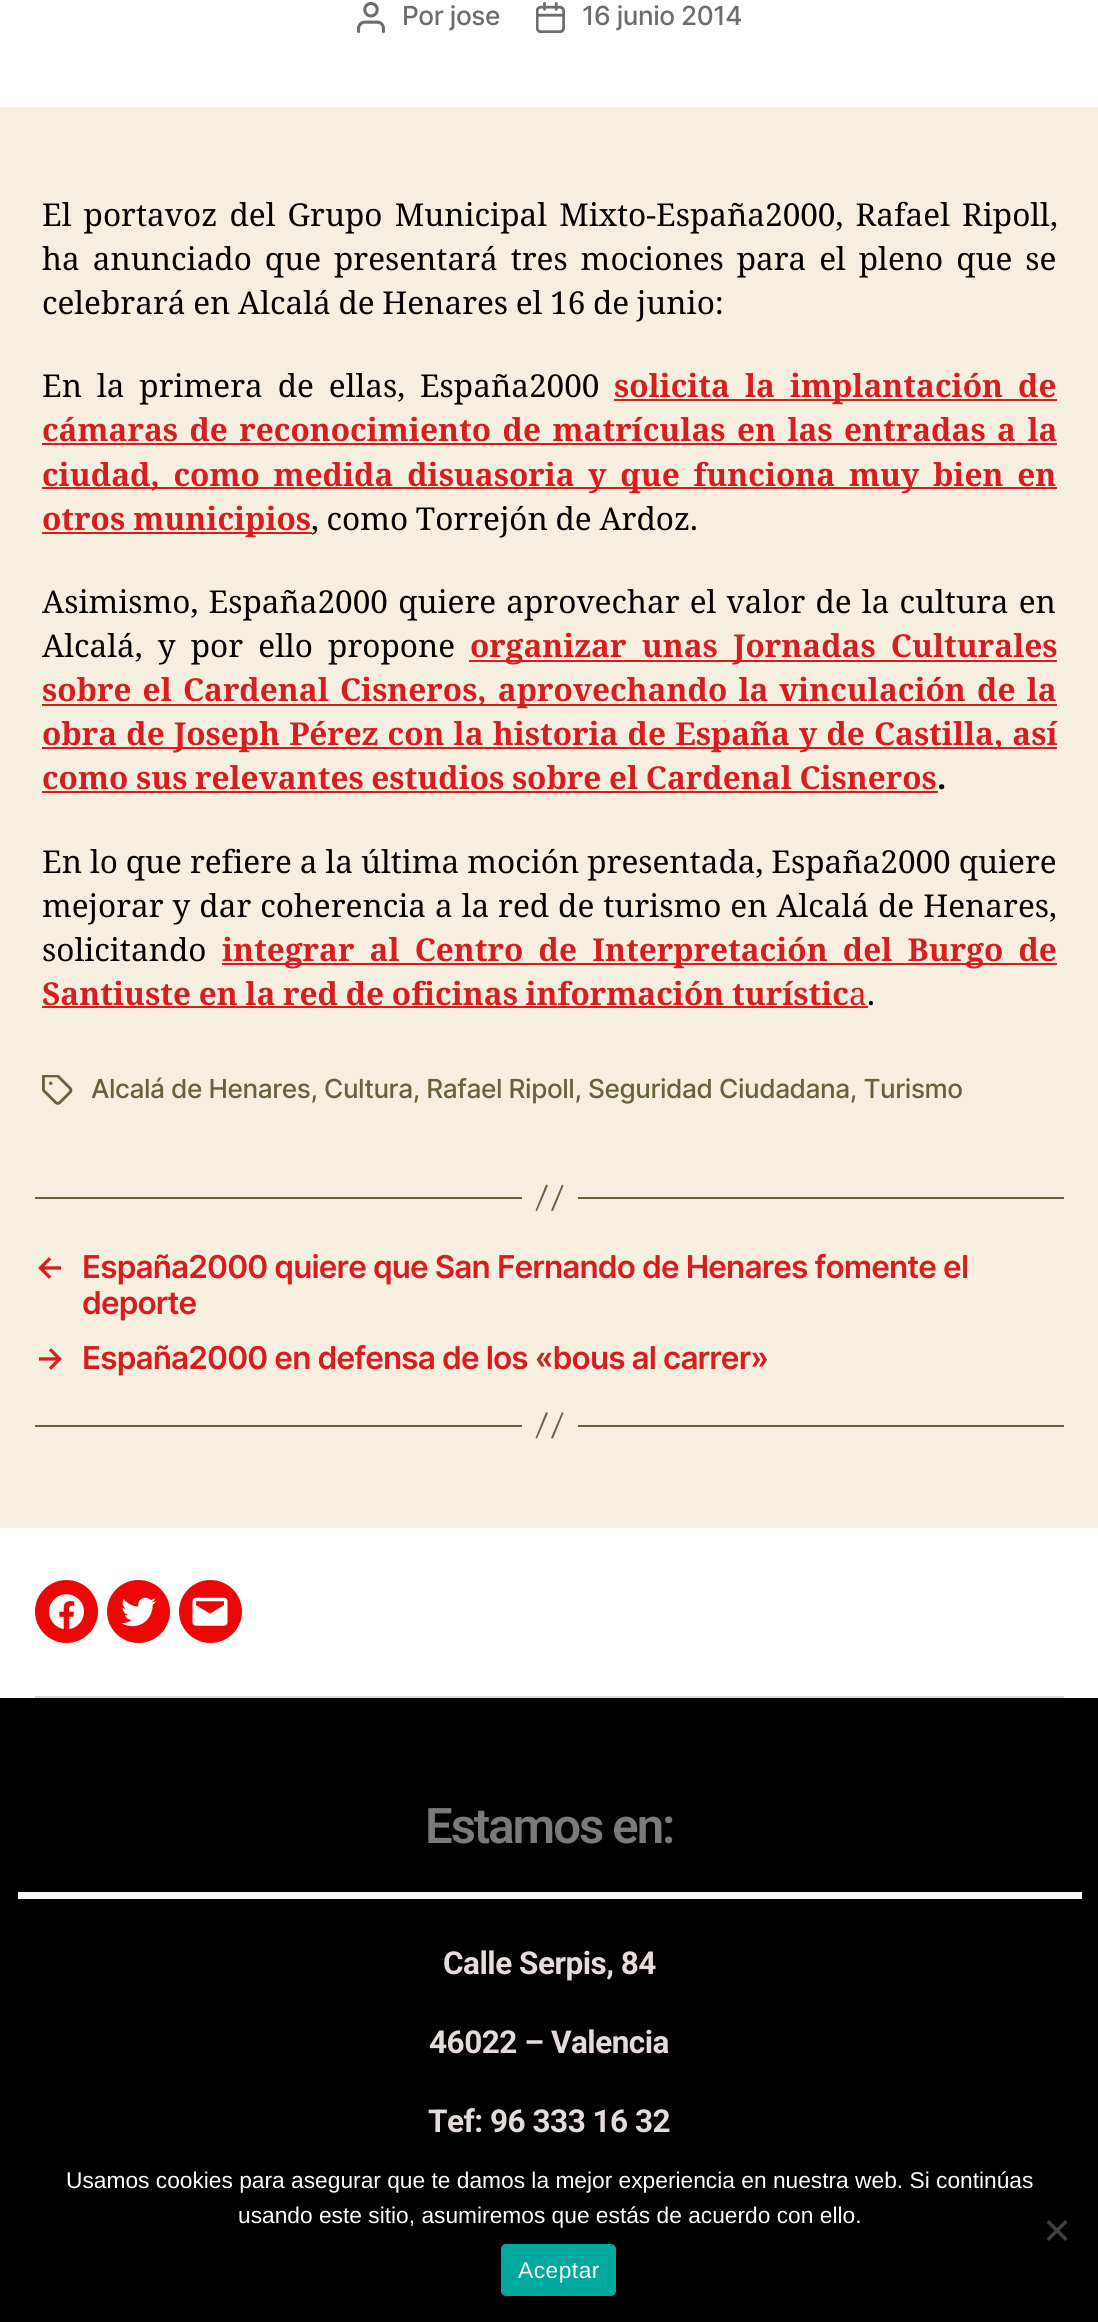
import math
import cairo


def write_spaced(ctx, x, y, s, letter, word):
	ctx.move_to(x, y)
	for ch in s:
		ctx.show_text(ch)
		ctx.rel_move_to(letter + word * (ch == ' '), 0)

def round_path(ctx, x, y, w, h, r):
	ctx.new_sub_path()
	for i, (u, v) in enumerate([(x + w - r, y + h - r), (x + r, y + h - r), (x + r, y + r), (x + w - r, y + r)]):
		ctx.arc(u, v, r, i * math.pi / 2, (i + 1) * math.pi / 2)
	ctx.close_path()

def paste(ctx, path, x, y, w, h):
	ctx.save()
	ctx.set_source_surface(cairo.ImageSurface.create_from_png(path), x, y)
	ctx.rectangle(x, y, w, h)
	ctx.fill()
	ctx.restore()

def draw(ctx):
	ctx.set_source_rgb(0.961, 0.937, 0.878)
	ctx.paint()
	ctx.set_source_rgb(1, 1, 1)
	ctx.rectangle(0, 0, 1098, 107)
	ctx.fill()
	paste(ctx, 'media/1.png', 357, 2, 28, 31)
	ctx.select_font_face('Inter Medium')
	ctx.set_font_size(26.25)
	ctx.set_source_rgb(0.427, 0.427, 0.427)
	write_spaced(ctx, 402, 25, 'Por jose', -0.45, 0)
	paste(ctx, 'media/2.png', 536, 2, 29, 31)
	write_spaced(ctx, 582, 25, '16 junio 2014', -0.45, 0)
	ctx.select_font_face('Noto Serif')
	ctx.set_font_size(31.5)
	ctx.set_source_rgb(0, 0, 0)
	write_spaced(ctx, 42, 226, 'El portavoz del Grupo Municipal Mixto-España2000, Rafael Ripoll,', 0, 4)
	write_spaced(ctx, 42, 270, 'ha anunciado que presentará tres mociones para el pleno que se', 0, 4.75)
	write_spaced(ctx, 42, 314, 'celebrará en Alcalá de Henares el 16 de junio:', 0, -0.5)
	write_spaced(ctx, 42, 397, 'En la primera de ellas, España2000', 0, 6.75)
	ctx.set_source_rgb(0.839, 0.118, 0.118)
	ctx.rectangle(614, 399, 443, 2)
	ctx.fill()
	ctx.select_font_face('Noto Serif', cairo.FONT_SLANT_NORMAL, cairo.FONT_WEIGHT_BOLD)
	write_spaced(ctx, 614, 397, 'solicita la implantación de', 0, 6.75)
	write_spaced(ctx, 42, 441, 'cámaras de reconocimiento de matrículas en las entradas a la', 0, 3.25)
	ctx.rectangle(42, 443, 1015, 2)
	ctx.fill()
	ctx.rectangle(42, 487, 1015, 2)
	ctx.fill()
	write_spaced(ctx, 42, 486, 'ciudad, como medida disuasoria y que funciona muy bien en', 0, 5.5)
	ctx.rectangle(42, 532, 270, 2)
	ctx.fill()
	ctx.move_to(42, 530)
	ctx.show_text('otros municipios')
	ctx.select_font_face('Noto Serif')
	ctx.set_source_rgb(0, 0, 0)
	write_spaced(ctx, 311, 530, ', como Torrejón de Ardoz.', 0, -0.5)
	write_spaced(ctx, 42, 613, 'Asimismo, España2000 quiere aprovechar el valor de la cultura en', 0, 2)
	write_spaced(ctx, 42, 657, 'Alcalá, y por ello propone', 0, 7)
	ctx.set_source_rgb(0.839, 0.118, 0.118)
	ctx.rectangle(469, 660, 588, 2)
	ctx.fill()
	ctx.select_font_face('Noto Serif', cairo.FONT_SLANT_NORMAL, cairo.FONT_WEIGHT_BOLD)
	write_spaced(ctx, 470, 657, 'organizar unas Jornadas Culturales', 0, 7)
	ctx.rectangle(42, 704, 1015, 2)
	ctx.fill()
	write_spaced(ctx, 42, 701, 'sobre el Cardenal Cisneros, aprovechando la', 0, 3)
	write_spaced(ctx, 779, 701, 'vinculación de la', 0, 3)
	ctx.rectangle(42, 747, 1015, 2)
	ctx.fill()
	write_spaced(ctx, 42, 745, 'obra de Joseph Pérez con la historia de España y de Castilla, así', 0, 0.9)
	write_spaced(ctx, 42, 789, 'como sus relevantes estudios sobre el Cardenal Cisneros', 0, -0.5)
	ctx.set_source_rgb(0, 0, 0)
	ctx.move_to(937, 789)
	ctx.show_text('.')
	ctx.set_source_rgb(0.839, 0.118, 0.118)
	ctx.rectangle(42, 791, 896, 2)
	ctx.fill()
	ctx.select_font_face('Noto Serif')
	ctx.set_source_rgb(0, 0, 0)
	write_spaced(ctx, 42, 873, 'En lo que refiere a la última moción presentada, España2000 quiere', 0, -0.25)
	write_spaced(ctx, 42, 917, 'mejorar y dar coherencia a la red de turismo en Alcalá de Henares,', 0, 0.75)
	ctx.move_to(42, 961)
	ctx.show_text('solicitando')
	ctx.set_source_rgb(0.839, 0.118, 0.118)
	ctx.rectangle(222, 963, 835, 2)
	ctx.fill()
	ctx.select_font_face('Noto Serif', cairo.FONT_SLANT_NORMAL, cairo.FONT_WEIGHT_BOLD)
	write_spaced(ctx, 222, 961, 'integrar al Centro de Interpretación del Burgo de', 0, 7)
	write_spaced(ctx, 42, 1005, 'Santiuste en la red de oficinas información turístic', 0, -0.5)
	ctx.select_font_face('Noto Serif')
	ctx.move_to(849, 1005)
	ctx.show_text('a')
	ctx.rectangle(42, 1006, 826, 2)
	ctx.fill()
	ctx.set_source_rgb(0, 0, 0)
	ctx.move_to(867, 1005)
	ctx.show_text('.')
	paste(ctx, 'media/3.png', 42, 1075, 31, 30)
	ctx.select_font_face('Inter Medium')
	ctx.set_font_size(26.25)
	ctx.set_source_rgb(0.412, 0.376, 0.243)
	write_spaced(ctx, 91, 1098, 'Alcalá de Henares, Cultura, Rafael Ripoll, Seguridad Ciudadana, Turismo', -0.45, 0)
	ctx.rectangle(578, 1197, 486, 2)
	ctx.fill()
	ctx.rectangle(35, 1197, 487, 2)
	ctx.fill()
	ctx.new_path()
	ctx.move_to(546, 1184.5)
	ctx.line_to(548, 1185.5)
	ctx.line_to(537, 1211)
	ctx.line_to(535.5, 1210.5)
	ctx.close_path()
	ctx.move_to(562, 1184.5)
	ctx.line_to(563.5, 1185.5)
	ctx.line_to(553, 1211)
	ctx.line_to(551, 1210.5)
	ctx.close_path()
	ctx.fill()
	ctx.select_font_face('Inter SemiBold')
	ctx.set_font_size(31.5)
	ctx.set_source_rgb(0.839, 0.118, 0.118)
	for x, y, s in [
		(35, 1278, '←'),
		(82, 1278, 'España2000 quiere que San Fernando de Henares fomente el'),
		(82, 1314, 'deporte'),
		(35, 1369, '→'),
		(82, 1369, 'España2000 en defensa de los «bous al carrer»'),
	]:
		write_spaced(ctx, x, y, s, -0.87, 0)
	ctx.set_source_rgb(0.412, 0.376, 0.243)
	ctx.rectangle(578, 1425, 486, 2)
	ctx.fill()
	ctx.rectangle(35, 1425, 487, 2)
	ctx.fill()
	ctx.new_path()
	ctx.move_to(546, 1412)
	ctx.line_to(548, 1413)
	ctx.line_to(537, 1438.5)
	ctx.line_to(535.5, 1438)
	ctx.close_path()
	ctx.move_to(562, 1412)
	ctx.line_to(563.5, 1413)
	ctx.line_to(553, 1438.5)
	ctx.line_to(551, 1438)
	ctx.close_path()
	ctx.fill()
	ctx.set_source_rgb(1, 1, 1)
	ctx.rectangle(0, 1528, 1098, 170)
	ctx.fill()
	ctx.set_source_rgb(0.859, 0.859, 0.859)
	ctx.rectangle(35, 1696, 1029, 2)
	ctx.fill()
	ctx.set_source_rgb(0.933, 0.024, 0.024)
	ctx.arc(66.5, 1611.5, 31.5, 0, 2 * math.pi)
	ctx.fill()
	paste(ctx, 'media/4.png', 49, 1594, 35, 35)
	ctx.arc(138.5, 1611.5, 31.5, 0, 2 * math.pi)
	ctx.fill()
	paste(ctx, 'media/5.png', 121, 1597, 35, 30)
	ctx.arc(210.5, 1611.5, 31.5, 0, 2 * math.pi)
	ctx.fill()
	paste(ctx, 'media/6.png', 192, 1597, 36, 29)
	ctx.set_source_rgb(0, 0, 0)
	ctx.rectangle(0, 1698, 1098, 624)
	ctx.fill()
	ctx.select_font_face('Roboto SemiBold')
	ctx.set_font_size(49)
	ctx.set_source_rgb(0.478, 0.478, 0.478)
	write_spaced(ctx, 425, 1843, 'Estamos en:', -2, 0)
	ctx.set_source_rgb(0.98, 0.969, 0.969)
	ctx.rectangle(18, 1892, 1064, 7)
	ctx.fill()
	ctx.select_font_face('Roboto', cairo.FONT_SLANT_NORMAL, cairo.FONT_WEIGHT_BOLD)
	ctx.set_font_size(31.5)
	ctx.set_source_rgb(0.902, 0.859, 0.859)
	for x, y, s in [
		(443, 1974, 'Calle Serpis, 84'),
		(429, 2053, '46022 – Valencia'),
		(428, 2132, 'Tef: 96 333 16 32'),
	]:
		write_spaced(ctx, x, y, s, -0.5, 0)
	ctx.select_font_face('Liberation Sans')
	ctx.set_font_size(22.75)
	ctx.set_source_rgb(1, 1, 1)
	ctx.move_to(66, 2188)
	ctx.show_text('Usamos cookies para asegurar que te damos la mejor experiencia en nuestra web. Si continúas')
	ctx.move_to(238, 2223)
	ctx.show_text('usando este sitio, asumiremos que estás de acuerdo con ello.')
	ctx.set_source_rgb(0.251, 0.251, 0.251)
	ctx.new_path()
	ctx.move_to(1065, 2220)
	ctx.line_to(1067.5, 2222.5)
	ctx.line_to(1049, 2241)
	ctx.line_to(1046.5, 2238.5)
	ctx.close_path()
	ctx.fill()
	ctx.new_path()
	ctx.move_to(1046.5, 2222.5)
	ctx.line_to(1049, 2220)
	ctx.line_to(1067.5, 2238.5)
	ctx.line_to(1065, 2241)
	ctx.close_path()
	ctx.fill()
	ctx.set_source_rgb(0, 0.663, 0.616)
	round_path(ctx, 501, 2244, 115, 52, 5)
	ctx.fill()
	ctx.set_source_rgb(1, 1, 1)
	write_spaced(ctx, 518, 2278, 'Aceptar', 0.5, 0)


surface = cairo.ImageSurface(cairo.FORMAT_RGB24, 1098, 2322)
ctx = cairo.Context(surface)
options = cairo.FontOptions()
options.set_hint_metrics(cairo.HINT_METRICS_OFF)
options.set_hint_style(cairo.HINT_STYLE_NONE)
ctx.set_font_options(options)
ctx.set_miter_limit(4)
draw(ctx)
surface.write_to_png('image.png')
